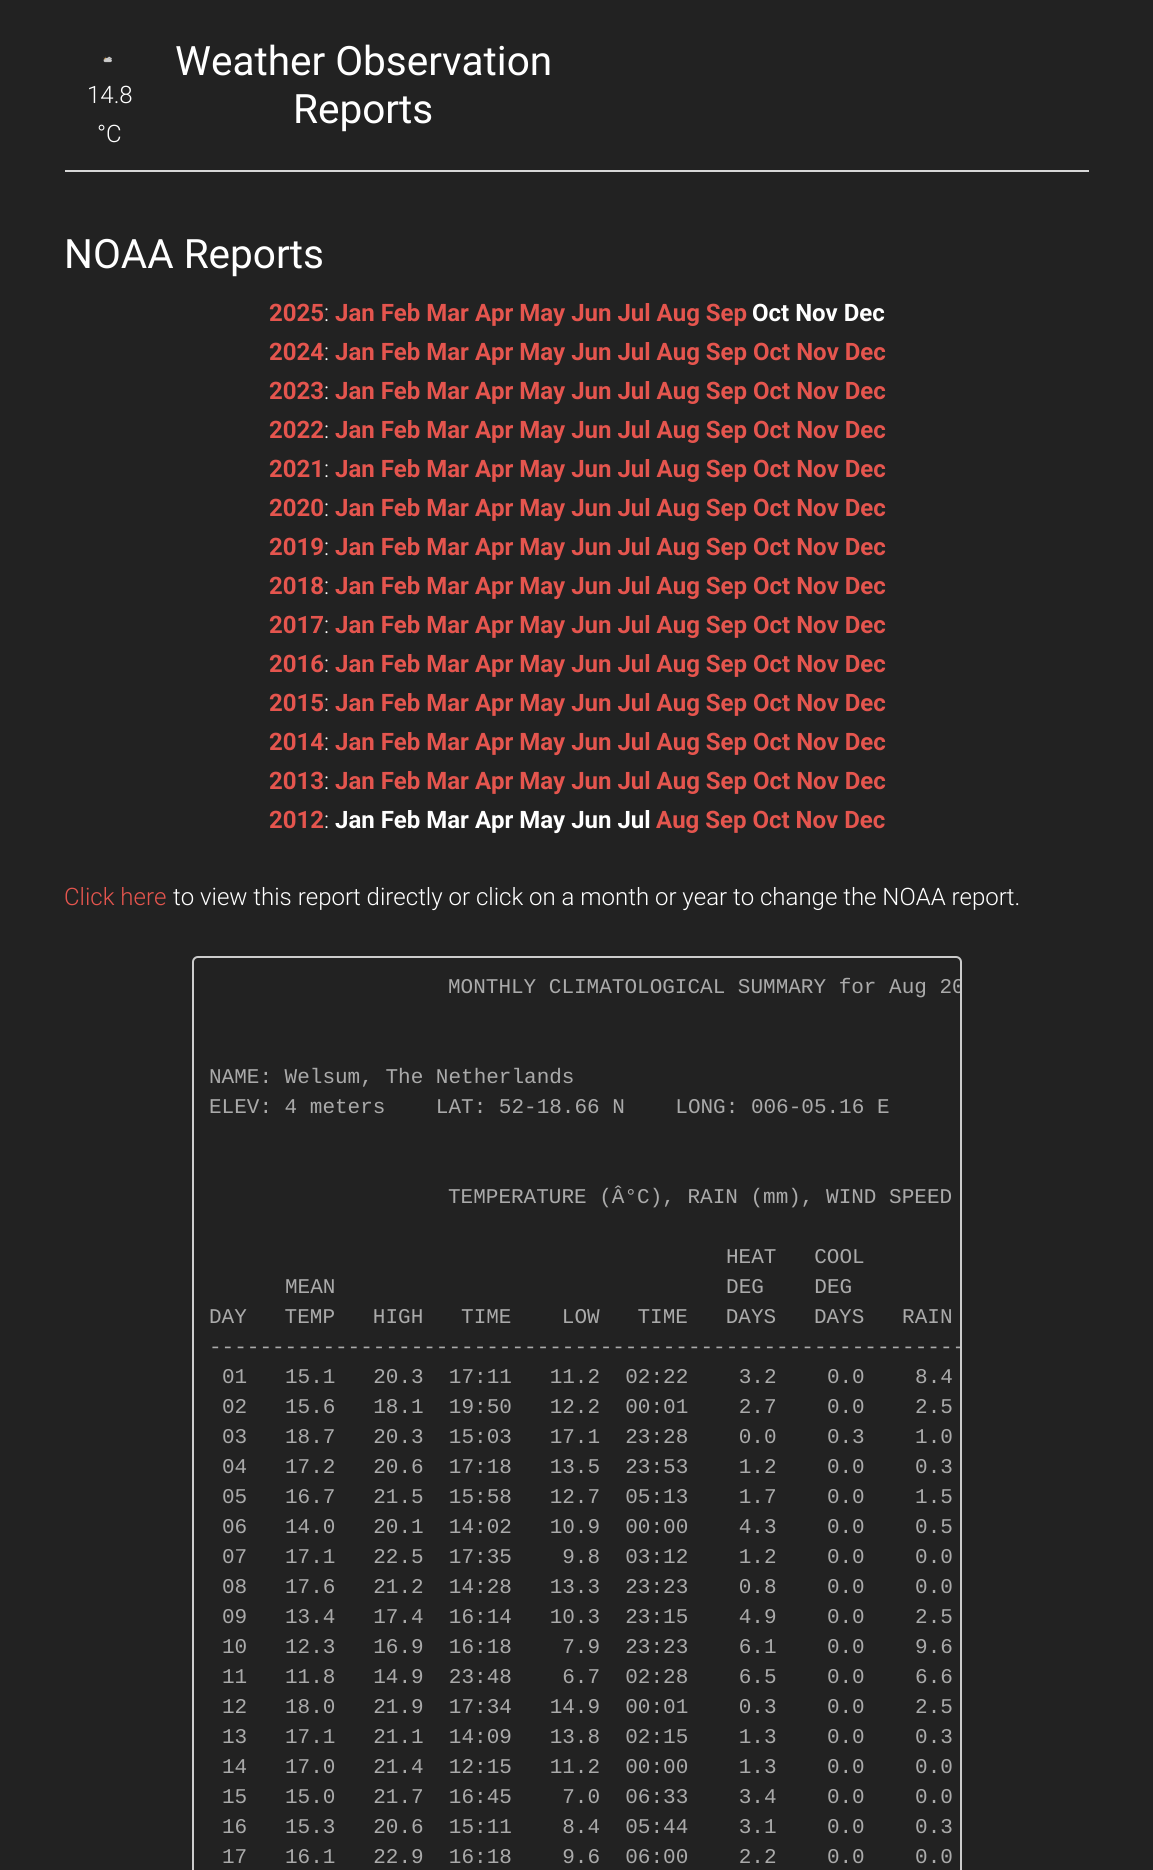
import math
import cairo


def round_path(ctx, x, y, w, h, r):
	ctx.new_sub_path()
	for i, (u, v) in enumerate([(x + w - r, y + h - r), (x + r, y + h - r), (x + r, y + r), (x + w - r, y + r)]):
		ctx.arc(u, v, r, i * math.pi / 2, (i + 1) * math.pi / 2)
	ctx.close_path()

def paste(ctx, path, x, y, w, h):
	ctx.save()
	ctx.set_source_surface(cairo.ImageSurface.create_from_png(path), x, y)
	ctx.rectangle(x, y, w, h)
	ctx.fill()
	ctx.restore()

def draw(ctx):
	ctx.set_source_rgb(0.133, 0.133, 0.133)
	ctx.paint()
	ctx.set_source_rgb(0.843, 0.843, 0.843)
	ctx.rectangle(65, 170, 1024, 2)
	ctx.fill()
	paste(ctx, 'media/1.png', 103, 56, 9, 7)
	ctx.select_font_face('Roboto Light')
	ctx.set_font_size(24)
	ctx.set_source_rgb(1, 1, 1)
	ctx.move_to(87, 103)
	ctx.show_text('14.8')
	ctx.move_to(97, 142)
	ctx.show_text('°C')
	ctx.select_font_face('Roboto')
	ctx.set_font_size(40.5)
	for x, y, s in [
		(175, 75, 'Weather Observation'),
		(293, 123, 'Reports'),
		(64, 268, 'NOAA Reports'),
	]:
		ctx.move_to(x, y)
		ctx.show_text(s)
	ctx.select_font_face('Roboto', cairo.FONT_SLANT_NORMAL, cairo.FONT_WEIGHT_BOLD)
	ctx.set_font_size(24)
	ctx.set_source_rgb(0.898, 0.333, 0.306)
	ctx.move_to(269, 321)
	ctx.show_text('2025')
	ctx.select_font_face('Roboto Light')
	ctx.set_source_rgb(1, 1, 1)
	ctx.move_to(324, 321)
	ctx.show_text(':')
	ctx.select_font_face('Roboto', cairo.FONT_SLANT_NORMAL, cairo.FONT_WEIGHT_BOLD)
	ctx.set_source_rgb(0.898, 0.333, 0.306)
	ctx.move_to(335, 321)
	ctx.show_text('Jan Feb Mar Apr May Jun Jul Aug Sep')
	ctx.set_source_rgb(1, 1, 1)
	ctx.move_to(752, 321)
	ctx.show_text('Oct Nov Dec')
	ctx.set_source_rgb(0.898, 0.333, 0.306)
	ctx.move_to(269, 360)
	ctx.show_text('2024')
	ctx.select_font_face('Roboto Light')
	ctx.set_source_rgb(1, 1, 1)
	ctx.move_to(324, 360)
	ctx.show_text(':')
	ctx.select_font_face('Roboto', cairo.FONT_SLANT_NORMAL, cairo.FONT_WEIGHT_BOLD)
	ctx.set_source_rgb(0.898, 0.333, 0.306)
	ctx.move_to(335, 360)
	ctx.show_text('Jan Feb Mar Apr May Jun Jul Aug Sep Oct Nov Dec')
	ctx.move_to(269, 399)
	ctx.show_text('2023')
	ctx.select_font_face('Roboto Light')
	ctx.set_source_rgb(1, 1, 1)
	ctx.move_to(324, 399)
	ctx.show_text(':')
	ctx.select_font_face('Roboto', cairo.FONT_SLANT_NORMAL, cairo.FONT_WEIGHT_BOLD)
	ctx.set_source_rgb(0.898, 0.333, 0.306)
	ctx.move_to(335, 399)
	ctx.show_text('Jan Feb Mar Apr May Jun Jul Aug Sep Oct Nov Dec')
	ctx.move_to(269, 438)
	ctx.show_text('2022')
	ctx.select_font_face('Roboto Light')
	ctx.set_source_rgb(1, 1, 1)
	ctx.move_to(324, 438)
	ctx.show_text(':')
	ctx.select_font_face('Roboto', cairo.FONT_SLANT_NORMAL, cairo.FONT_WEIGHT_BOLD)
	ctx.set_source_rgb(0.898, 0.333, 0.306)
	ctx.move_to(335, 438)
	ctx.show_text('Jan Feb Mar Apr May Jun Jul Aug Sep Oct Nov Dec')
	ctx.move_to(269, 477)
	ctx.show_text('2021')
	ctx.select_font_face('Roboto Light')
	ctx.set_source_rgb(1, 1, 1)
	ctx.move_to(324, 477)
	ctx.show_text(':')
	ctx.select_font_face('Roboto', cairo.FONT_SLANT_NORMAL, cairo.FONT_WEIGHT_BOLD)
	ctx.set_source_rgb(0.898, 0.333, 0.306)
	ctx.move_to(335, 477)
	ctx.show_text('Jan Feb Mar Apr May Jun Jul Aug Sep Oct Nov Dec')
	ctx.move_to(269, 516)
	ctx.show_text('2020')
	ctx.select_font_face('Roboto Light')
	ctx.set_source_rgb(1, 1, 1)
	ctx.move_to(324, 516)
	ctx.show_text(':')
	ctx.select_font_face('Roboto', cairo.FONT_SLANT_NORMAL, cairo.FONT_WEIGHT_BOLD)
	ctx.set_source_rgb(0.898, 0.333, 0.306)
	ctx.move_to(335, 516)
	ctx.show_text('Jan Feb Mar Apr May Jun Jul Aug Sep Oct Nov Dec')
	ctx.move_to(269, 555)
	ctx.show_text('2019')
	ctx.select_font_face('Roboto Light')
	ctx.set_source_rgb(1, 1, 1)
	ctx.move_to(324, 555)
	ctx.show_text(':')
	ctx.select_font_face('Roboto', cairo.FONT_SLANT_NORMAL, cairo.FONT_WEIGHT_BOLD)
	ctx.set_source_rgb(0.898, 0.333, 0.306)
	ctx.move_to(335, 555)
	ctx.show_text('Jan Feb Mar Apr May Jun Jul Aug Sep Oct Nov Dec')
	ctx.move_to(269, 594)
	ctx.show_text('2018')
	ctx.select_font_face('Roboto Light')
	ctx.set_source_rgb(1, 1, 1)
	ctx.move_to(324, 594)
	ctx.show_text(':')
	ctx.select_font_face('Roboto', cairo.FONT_SLANT_NORMAL, cairo.FONT_WEIGHT_BOLD)
	ctx.set_source_rgb(0.898, 0.333, 0.306)
	ctx.move_to(335, 594)
	ctx.show_text('Jan Feb Mar Apr May Jun Jul Aug Sep Oct Nov Dec')
	ctx.move_to(269, 633)
	ctx.show_text('2017')
	ctx.select_font_face('Roboto Light')
	ctx.set_source_rgb(1, 1, 1)
	ctx.move_to(324, 633)
	ctx.show_text(':')
	ctx.select_font_face('Roboto', cairo.FONT_SLANT_NORMAL, cairo.FONT_WEIGHT_BOLD)
	ctx.set_source_rgb(0.898, 0.333, 0.306)
	ctx.move_to(335, 633)
	ctx.show_text('Jan Feb Mar Apr May Jun Jul Aug Sep Oct Nov Dec')
	ctx.move_to(269, 672)
	ctx.show_text('2016')
	ctx.select_font_face('Roboto Light')
	ctx.set_source_rgb(1, 1, 1)
	ctx.move_to(324, 672)
	ctx.show_text(':')
	ctx.select_font_face('Roboto', cairo.FONT_SLANT_NORMAL, cairo.FONT_WEIGHT_BOLD)
	ctx.set_source_rgb(0.898, 0.333, 0.306)
	ctx.move_to(335, 672)
	ctx.show_text('Jan Feb Mar Apr May Jun Jul Aug Sep Oct Nov Dec')
	ctx.move_to(269, 711)
	ctx.show_text('2015')
	ctx.select_font_face('Roboto Light')
	ctx.set_source_rgb(1, 1, 1)
	ctx.move_to(324, 711)
	ctx.show_text(':')
	ctx.select_font_face('Roboto', cairo.FONT_SLANT_NORMAL, cairo.FONT_WEIGHT_BOLD)
	ctx.set_source_rgb(0.898, 0.333, 0.306)
	ctx.move_to(335, 711)
	ctx.show_text('Jan Feb Mar Apr May Jun Jul Aug Sep Oct Nov Dec')
	ctx.move_to(269, 750)
	ctx.show_text('2014')
	ctx.select_font_face('Roboto Light')
	ctx.set_source_rgb(1, 1, 1)
	ctx.move_to(324, 750)
	ctx.show_text(':')
	ctx.select_font_face('Roboto', cairo.FONT_SLANT_NORMAL, cairo.FONT_WEIGHT_BOLD)
	ctx.set_source_rgb(0.898, 0.333, 0.306)
	ctx.move_to(335, 750)
	ctx.show_text('Jan Feb Mar Apr May Jun Jul Aug Sep Oct Nov Dec')
	ctx.move_to(269, 789)
	ctx.show_text('2013')
	ctx.select_font_face('Roboto Light')
	ctx.set_source_rgb(1, 1, 1)
	ctx.move_to(324, 789)
	ctx.show_text(':')
	ctx.select_font_face('Roboto', cairo.FONT_SLANT_NORMAL, cairo.FONT_WEIGHT_BOLD)
	ctx.set_source_rgb(0.898, 0.333, 0.306)
	ctx.move_to(335, 789)
	ctx.show_text('Jan Feb Mar Apr May Jun Jul Aug Sep Oct Nov Dec')
	ctx.move_to(269, 828)
	ctx.show_text('2012')
	ctx.select_font_face('Roboto Light')
	ctx.set_source_rgb(1, 1, 1)
	ctx.move_to(324, 828)
	ctx.show_text(':')
	ctx.select_font_face('Roboto', cairo.FONT_SLANT_NORMAL, cairo.FONT_WEIGHT_BOLD)
	ctx.move_to(335, 828)
	ctx.show_text('Jan Feb Mar Apr May Jun Jul')
	ctx.set_source_rgb(0.898, 0.333, 0.306)
	ctx.move_to(656, 828)
	ctx.show_text('Aug Sep Oct Nov Dec')
	ctx.select_font_face('Roboto Light')
	ctx.move_to(64, 905)
	ctx.show_text('Click here')
	ctx.set_source_rgb(1, 1, 1)
	ctx.move_to(173, 905)
	ctx.show_text('to view this report directly or click on a month or year to change the NOAA report.')
	round_path(ctx, 193, 957, 768, 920, 5)
	ctx.set_source_rgb(0.8, 0.8, 0.8)
	ctx.stroke()
	ctx.save()
	round_path(ctx, 194, 957, 766, 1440, 5)
	ctx.clip()
	ctx.select_font_face('Liberation Mono')
	ctx.set_font_size(21)
	ctx.set_source_rgb(0.667, 0.667, 0.667)
	ctx.move_to(448, 993)
	ctx.show_text('MONTHLY CLIMATOLOGICAL SUMMARY for Aug 20')
	ctx.restore()
	ctx.select_font_face('Liberation Mono')
	ctx.set_font_size(21)
	ctx.set_source_rgb(0.667, 0.667, 0.667)
	for x, y, s in [
		(209, 1083, 'NAME: Welsum, The Netherlands'),
		(209, 1113, 'ELEV: 4 meters    LAT: 52-18.66 N    LONG: 006-05.16 E'),
		(448, 1203, 'TEMPERATURE (Â°C), RAIN (mm), WIND SPEED'),
		(726, 1263, 'HEAT   COOL'),
		(285, 1293, 'MEAN                               DEG    DEG'),
		(209, 1323, 'DAY   TEMP   HIGH   TIME    LOW   TIME   DAYS   DAYS   RAIN'),
	]:
		ctx.move_to(x, y)
		ctx.show_text(s)
	ctx.save()
	round_path(ctx, 194, 957, 766, 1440, 5)
	ctx.clip()
	ctx.move_to(209, 1353)
	ctx.show_text('------------------------------------------------------------')
	ctx.restore()
	for x, y, s in [
		(222, 1383, '01   15.1   20.3  17:11   11.2  02:22    3.2    0.0    8.4'),
		(222, 1413, '02   15.6   18.1  19:50   12.2  00:01    2.7    0.0    2.5'),
		(222, 1443, '03   18.7   20.3  15:03   17.1  23:28    0.0    0.3    1.0'),
		(222, 1473, '04   17.2   20.6  17:18   13.5  23:53    1.2    0.0    0.3'),
		(222, 1503, '05   16.7   21.5  15:58   12.7  05:13    1.7    0.0    1.5'),
		(222, 1533, '06   14.0   20.1  14:02   10.9  00:00    4.3    0.0    0.5'),
		(222, 1563, '07   17.1   22.5  17:35    9.8  03:12    1.2    0.0    0.0'),
		(222, 1593, '08   17.6   21.2  14:28   13.3  23:23    0.8    0.0    0.0'),
		(222, 1623, '09   13.4   17.4  16:14   10.3  23:15    4.9    0.0    2.5'),
		(222, 1653, '10   12.3   16.9  16:18    7.9  23:23    6.1    0.0    9.6'),
		(222, 1683, '11   11.8   14.9  23:48    6.7  02:28    6.5    0.0    6.6'),
		(222, 1713, '12   18.0   21.9  17:34   14.9  00:01    0.3    0.0    2.5'),
		(222, 1743, '13   17.1   21.1  14:09   13.8  02:15    1.3    0.0    0.3'),
		(222, 1773, '14   17.0   21.4  12:15   11.2  00:00    1.3    0.0    0.0'),
		(222, 1803, '15   15.0   21.7  16:45    7.0  06:33    3.4    0.0    0.0'),
		(222, 1833, '16   15.3   20.6  15:11    8.4  05:44    3.1    0.0    0.3'),
		(222, 1863, '17   16.1   22.9  16:18    9.6  06:00    2.2    0.0    0.0'),
	]:
		ctx.move_to(x, y)
		ctx.show_text(s)


surface = cairo.ImageSurface(cairo.FORMAT_RGB24, 1153, 1870)
ctx = cairo.Context(surface)
options = cairo.FontOptions()
options.set_hint_metrics(cairo.HINT_METRICS_OFF)
options.set_hint_style(cairo.HINT_STYLE_NONE)
ctx.set_font_options(options)
ctx.set_miter_limit(4)
draw(ctx)
surface.write_to_png('image.png')
